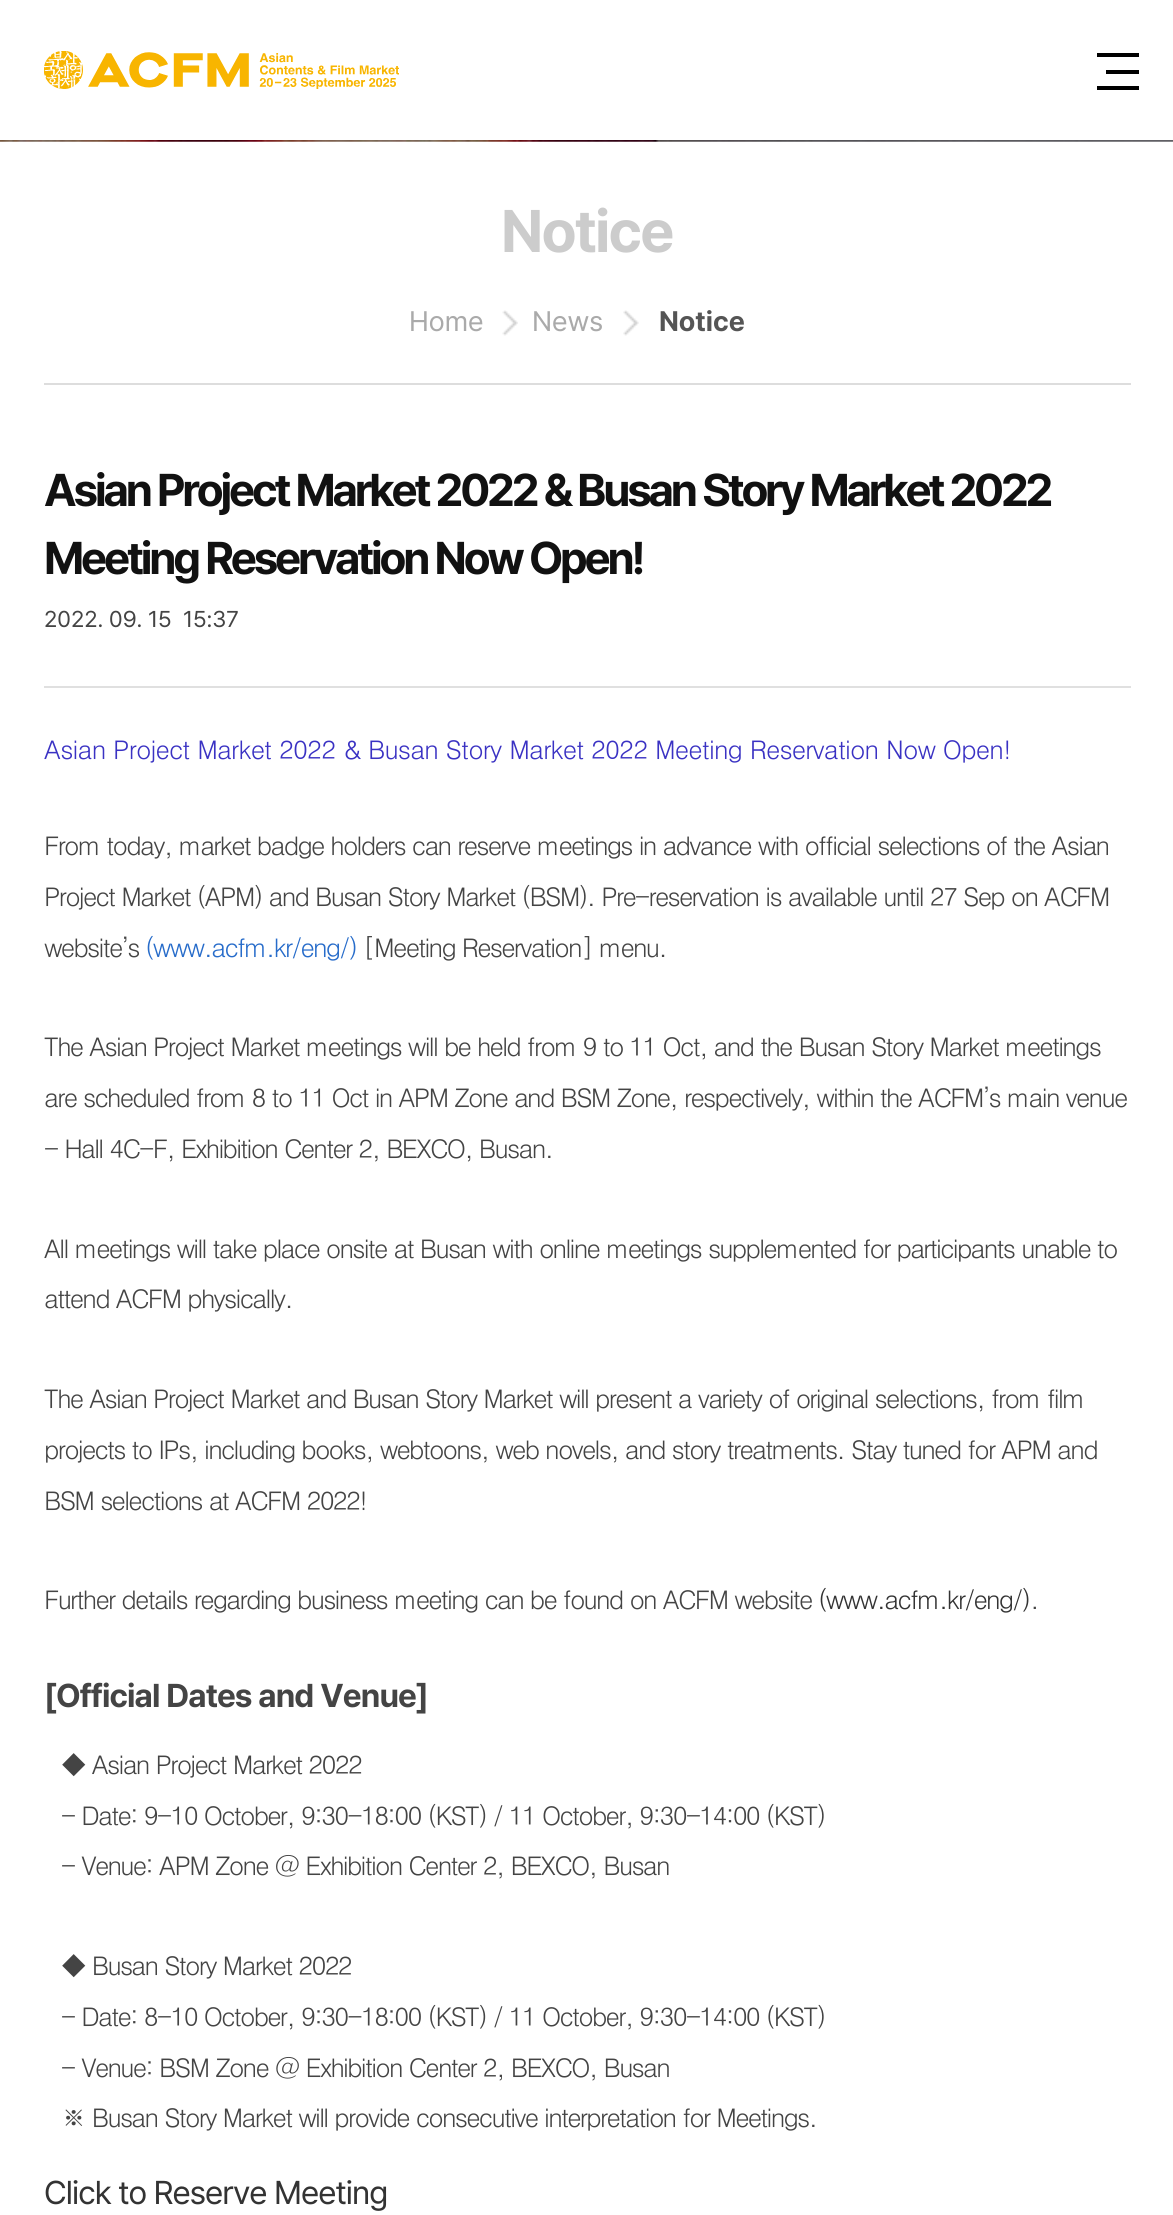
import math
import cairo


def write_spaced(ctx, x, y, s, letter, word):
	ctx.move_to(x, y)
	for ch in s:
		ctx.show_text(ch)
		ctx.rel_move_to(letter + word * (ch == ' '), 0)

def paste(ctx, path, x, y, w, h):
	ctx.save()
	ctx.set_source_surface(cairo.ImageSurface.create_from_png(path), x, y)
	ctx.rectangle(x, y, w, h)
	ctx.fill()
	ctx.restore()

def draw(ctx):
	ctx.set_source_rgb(1, 1, 1)
	ctx.paint()
	paste(ctx, 'media/1.png', 44, 51, 355, 38)
	ctx.set_source_rgb(0, 0, 0)
	ctx.rectangle(1097, 53, 42, 4)
	ctx.rectangle(1106, 70, 33, 4)
	ctx.rectangle(1097, 86, 42, 4)
	ctx.fill()
	paste(ctx, 'media/2.png', 0, 140, 1173, 2)
	ctx.set_source_rgb(0.867, 0.867, 0.867)
	ctx.rectangle(44, 383, 1087, 2)
	ctx.fill()
	ctx.select_font_face('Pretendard', cairo.FONT_SLANT_NORMAL, cairo.FONT_WEIGHT_BOLD)
	ctx.set_font_size(59.5)
	ctx.set_source_rgb(0.8, 0.8, 0.8)
	write_spaced(ctx, 501, 252, 'Notice', -1.75, 0)
	ctx.select_font_face('Pretendard')
	ctx.set_font_size(28)
	ctx.set_source_rgb(0.667, 0.667, 0.667)
	ctx.move_to(409, 331)
	ctx.show_text('Home')
	paste(ctx, 'media/3.png', 502, 310, 16, 26)
	ctx.move_to(532, 331)
	ctx.show_text('News')
	paste(ctx, 'media/4.png', 623, 310, 16, 26)
	ctx.select_font_face('Pretendard', cairo.FONT_SLANT_NORMAL, cairo.FONT_WEIGHT_BOLD)
	ctx.set_source_rgb(0.333, 0.333, 0.333)
	ctx.move_to(659, 331)
	ctx.show_text('Notice')
	ctx.set_font_size(45.5)
	ctx.set_source_rgb(0.067, 0.067, 0.067)
	write_spaced(ctx, 44, 506, 'Asian Project Market 2022 & Busan Story Market 2022', -3.15, 0)
	write_spaced(ctx, 44, 574, 'Meeting Reservation Now Open!', -3.15, 0)
	ctx.select_font_face('Pretendard')
	ctx.set_font_size(22.75)
	ctx.set_source_rgb(0.267, 0.267, 0.267)
	ctx.move_to(44, 627)
	ctx.show_text('2022. 09. 15')
	ctx.move_to(183, 627)
	ctx.show_text('15:37')
	ctx.set_source_rgb(0.878, 0.878, 0.878)
	ctx.rectangle(44, 686, 1087, 2)
	ctx.fill()
	ctx.select_font_face('Dotum')
	ctx.set_font_size(25.65)
	ctx.set_source_rgb(0.227, 0.196, 0.765)
	write_spaced(ctx, 44, 759, 'Asian Project Market 2022 & Busan Story Market 2022', -0.88, 0)
	write_spaced(ctx, 655, 759, 'Meeting Reservation Now Open!', -0.88, 0)
	ctx.set_source_rgb(0.267, 0.267, 0.267)
	for x, y, s in [
		(44, 855, 'From today, market badge holders can reserve meetings in advance with official selections of the Asian'),
		(44, 906, 'Project Market (APM) and Busan Story Market (BSM). Pre-reservation is available until 27 Sep on ACFM'),
		(44, 957, 'website’s'),
	]:
		write_spaced(ctx, x, y, s, -1.75, 0)
	ctx.set_source_rgb(0.153, 0.424, 0.792)
	write_spaced(ctx, 145, 957, '(www.acfm.kr/eng/)', -1.75, 0)
	ctx.set_source_rgb(0.267, 0.267, 0.267)
	for x, y, s in [
		(363, 957, '[Meeting Reservation] menu.'),
		(44, 1056, 'The Asian Project Market meetings will be held from 9 to 11 Oct, and the Busan Story Market meetings'),
		(44, 1107, 'are scheduled from 8 to 11 Oct in APM Zone and BSM Zone, respectively, within the ACFM’s main venue'),
		(44, 1158, '- Hall 4C-F, Exhibition Center 2, BEXCO, Busan.'),
		(44, 1258, 'All meetings will take place onsite at Busan with online meetings supplemented for participants unable to'),
		(44, 1308, 'attend ACFM physically.'),
		(44, 1408, 'The Asian Project Market and Busan Story Market will present a variety of original selections, from film'),
		(44, 1459, 'projects to IPs, including books, webtoons, web novels, and story treatments. Stay tuned for APM and'),
		(44, 1510, 'BSM selections at ACFM 2022!'),
		(44, 1609, 'Further details regarding business meeting can be found on ACFM website'),
	]:
		write_spaced(ctx, x, y, s, -1.75, 0)
	ctx.set_source_rgb(0.2, 0.2, 0.2)
	write_spaced(ctx, 818, 1609, '(www.acfm.kr/eng/)', -1.75, 0)
	ctx.set_source_rgb(0.267, 0.267, 0.267)
	write_spaced(ctx, 1030, 1609, '.', -1.75, 0)
	ctx.select_font_face('Pretendard', cairo.FONT_SLANT_NORMAL, cairo.FONT_WEIGHT_BOLD)
	ctx.set_font_size(32.75)
	write_spaced(ctx, 44, 1707, '[Official Dates and Venue]', -0.88, 0)
	ctx.select_font_face('Dotum')
	ctx.set_font_size(25.65)
	for x, y, s in [
		(61, 1774, '◆ Asian Project Market 2022'),
		(61, 1825, '- Date: 9-10 October, 9:30-18:00 (KST) / 11 October, 9:30-14:00 (KST)'),
		(61, 1875, '- Venue: APM Zone @ Exhibition Center 2, BEXCO, Busan'),
		(61, 1975, '◆ Busan Story Market 2022'),
		(61, 2026, '- Date: 8-10 October, 9:30-18:00 (KST) / 11 October, 9:30-14:00 (KST)'),
		(61, 2077, '- Venue: BSM Zone @ Exhibition Center 2, BEXCO, Busan'),
		(61, 2127, '※ Busan Story Market will provide consecutive interpretation for Meetings.'),
	]:
		write_spaced(ctx, x, y, s, -1.75, 0)
	ctx.select_font_face('Pretendard')
	ctx.set_font_size(32.75)
	ctx.set_source_rgb(0.2, 0.2, 0.2)
	write_spaced(ctx, 44, 2204, 'Click to Reserve Meeting', -0.88, 0)


surface = cairo.ImageSurface(cairo.FORMAT_RGB24, 1173, 2215)
ctx = cairo.Context(surface)
options = cairo.FontOptions()
options.set_hint_metrics(cairo.HINT_METRICS_OFF)
options.set_hint_style(cairo.HINT_STYLE_NONE)
ctx.set_font_options(options)
ctx.set_miter_limit(4)
draw(ctx)
surface.write_to_png('image.png')
